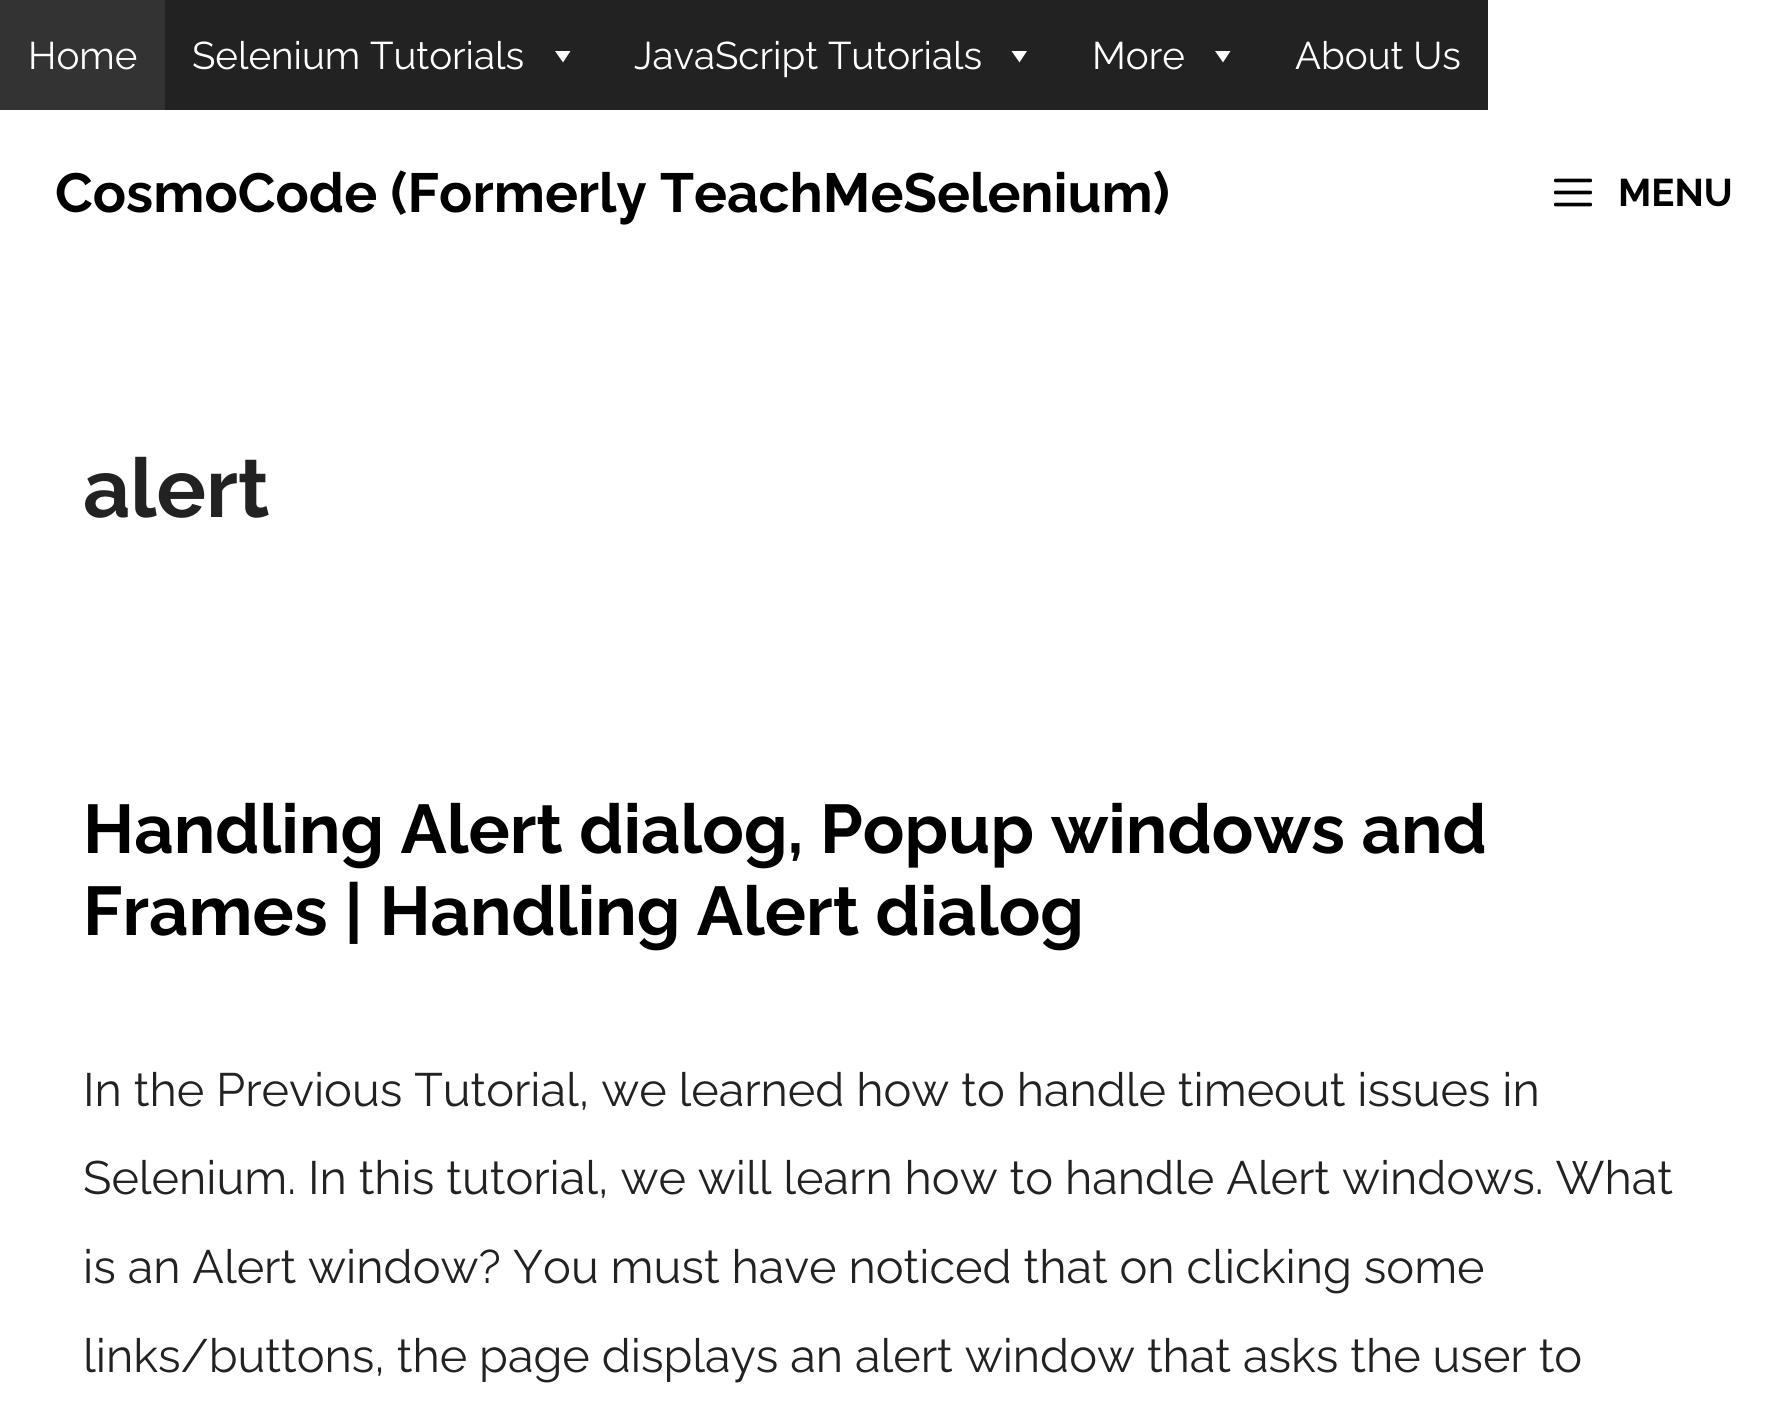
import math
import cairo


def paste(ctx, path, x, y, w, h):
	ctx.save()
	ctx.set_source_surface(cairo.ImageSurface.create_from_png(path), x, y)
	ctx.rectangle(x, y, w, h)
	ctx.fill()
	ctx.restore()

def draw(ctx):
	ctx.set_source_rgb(1, 1, 1)
	ctx.paint()
	ctx.set_source_rgb(0.133, 0.133, 0.133)
	ctx.rectangle(165, 0, 1323, 110)
	ctx.fill()
	ctx.set_source_rgb(0.2, 0.2, 0.2)
	ctx.rectangle(0, 0, 165, 110)
	ctx.fill()
	ctx.select_font_face('Raleway')
	ctx.set_font_size(38.5)
	ctx.set_source_rgb(1, 1, 1)
	ctx.move_to(28, 69)
	ctx.show_text('Home')
	ctx.move_to(192, 69)
	ctx.show_text('Selenium Tutorials')
	ctx.new_path()
	ctx.move_to(570.5, 51)
	ctx.line_to(563, 62.5)
	ctx.line_to(555, 51)
	ctx.close_path()
	ctx.fill()
	ctx.move_to(634, 69)
	ctx.show_text('JavaScript Tutorials')
	ctx.new_path()
	ctx.move_to(1027, 51)
	ctx.line_to(1019.5, 62.5)
	ctx.line_to(1011.5, 51)
	ctx.close_path()
	ctx.fill()
	ctx.move_to(1092, 69)
	ctx.show_text('More')
	ctx.new_path()
	ctx.move_to(1230.5, 51)
	ctx.line_to(1223, 62.5)
	ctx.line_to(1215, 51)
	ctx.close_path()
	ctx.fill()
	ctx.move_to(1295, 69)
	ctx.show_text('About Us')
	ctx.select_font_face('Raleway', cairo.FONT_SLANT_NORMAL, cairo.FONT_WEIGHT_BOLD)
	ctx.set_font_size(55)
	ctx.set_source_rgb(0, 0, 0)
	ctx.move_to(55, 212)
	ctx.show_text('CosmoCode (Formerly TeachMeSelenium)')
	paste(ctx, 'media/1.png', 1554, 178, 38, 29)
	ctx.set_font_size(38.5)
	ctx.move_to(1618, 206)
	ctx.show_text('MENU')
	ctx.set_font_size(82.5)
	ctx.set_source_rgb(0.133, 0.133, 0.133)
	ctx.move_to(83, 517)
	ctx.show_text('alert')
	ctx.set_font_size(68.75)
	ctx.set_source_rgb(0, 0, 0)
	ctx.move_to(83, 853)
	ctx.show_text('Handling Alert dialog, Popup windows and')
	ctx.move_to(83, 935)
	ctx.show_text('Frames | Handling Alert dialog')
	ctx.select_font_face('Raleway')
	ctx.set_font_size(46.75)
	ctx.set_source_rgb(0.133, 0.133, 0.133)
	for x, y, s in [
		(83, 1106, 'In the Previous Tutorial, we learned how to handle timeout issues in'),
		(83, 1194, 'Selenium. In this tutorial, we will learn how to handle Alert windows. What'),
		(83, 1283, 'is an Alert window? You must have noticed that on clicking some'),
		(83, 1372, 'links/buttons, the page displays an alert window that asks the user to'),
	]:
		ctx.move_to(x, y)
		ctx.show_text(s)


surface = cairo.ImageSurface(cairo.FORMAT_RGB24, 1786, 1405)
ctx = cairo.Context(surface)
options = cairo.FontOptions()
options.set_hint_metrics(cairo.HINT_METRICS_OFF)
options.set_hint_style(cairo.HINT_STYLE_NONE)
ctx.set_font_options(options)
ctx.set_miter_limit(4)
draw(ctx)
surface.write_to_png('image.png')
